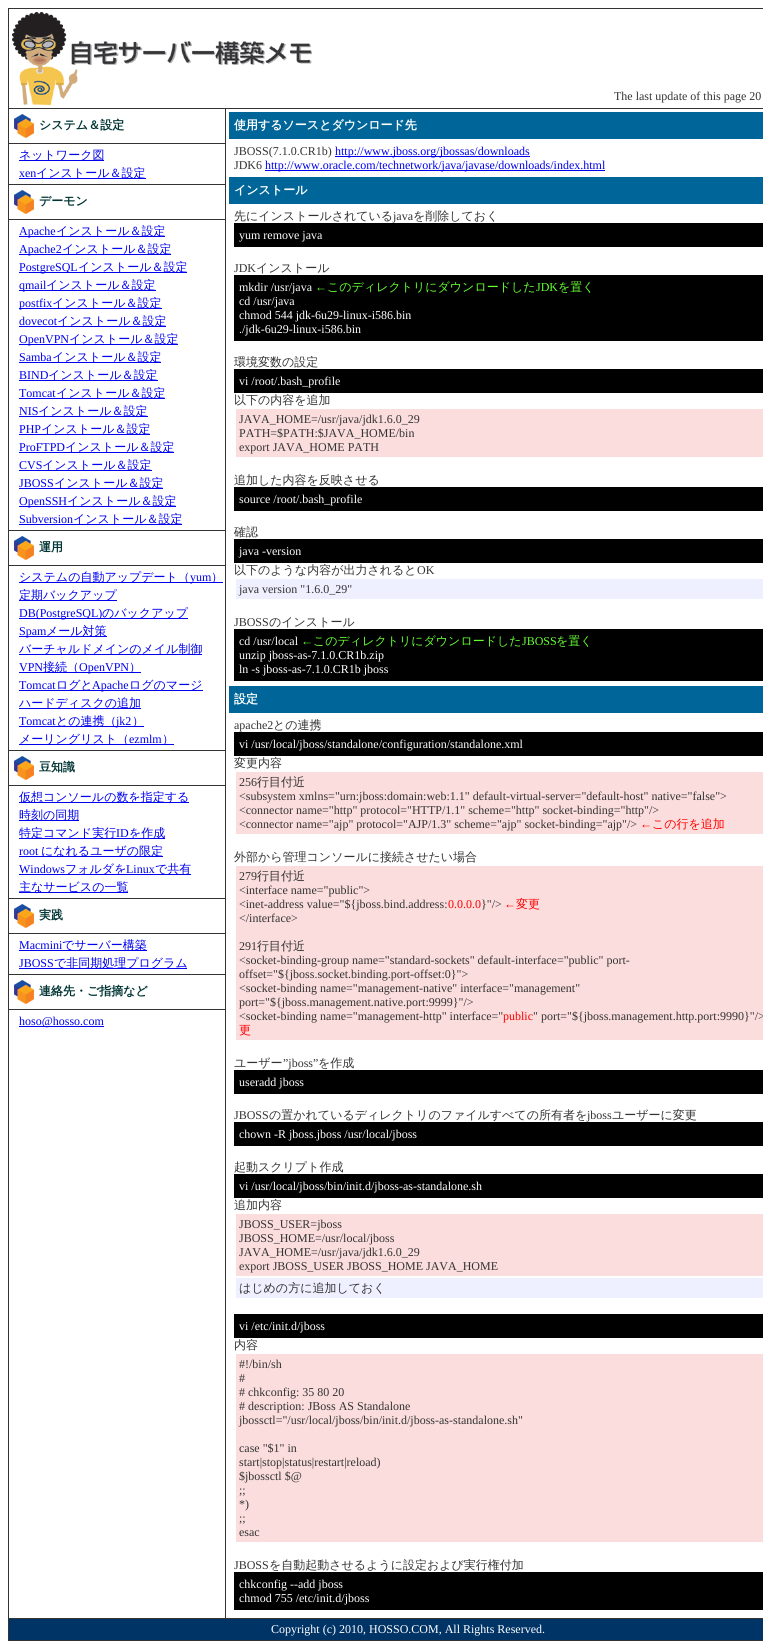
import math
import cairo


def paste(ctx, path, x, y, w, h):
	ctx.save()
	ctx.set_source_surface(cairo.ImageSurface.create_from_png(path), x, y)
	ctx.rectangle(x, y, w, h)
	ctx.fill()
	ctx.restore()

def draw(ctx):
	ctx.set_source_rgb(1, 1, 1)
	ctx.paint()
	ctx.set_source_rgb(0.2, 0.2, 0.2)
	ctx.rectangle(8, 8, 755, 1)
	ctx.fill()
	ctx.rectangle(8, 8, 1, 100)
	ctx.fill()
	paste(ctx, 'media/1.png', 12, 12, 300, 93)
	ctx.select_font_face('Liberation Serif')
	ctx.set_font_size(12)
	ctx.move_to(614, 100)
	ctx.show_text('The last update of this page 20')
	ctx.rectangle(8, 1618, 217, 1)
	ctx.rectangle(8, 108, 1, 1511)
	ctx.rectangle(9, 108, 216, 1)
	ctx.fill()
	paste(ctx, 'media/2.png', 14, 114, 20, 24)
	ctx.select_font_face('WenQuanYi Zen Hei', cairo.FONT_SLANT_NORMAL, cairo.FONT_WEIGHT_BOLD)
	ctx.set_source_rgb(0, 0.2, 0.2)
	ctx.move_to(39, 129)
	ctx.show_text('システム＆設定')
	ctx.set_source_rgb(0.2, 0.2, 0.2)
	ctx.rectangle(9, 143, 216, 1)
	ctx.fill()
	ctx.set_source_rgb(0, 0, 0.933)
	ctx.rectangle(19, 160, 85, 1)
	ctx.fill()
	ctx.select_font_face('WenQuanYi Zen Hei Medium')
	ctx.move_to(19, 159)
	ctx.show_text('ネットワーク図')
	ctx.select_font_face('Liberation Serif')
	ctx.move_to(19, 177)
	ctx.show_text('xen')
	ctx.rectangle(19, 178, 127, 1)
	ctx.fill()
	ctx.select_font_face('WenQuanYi Zen Hei Medium')
	ctx.move_to(36, 177)
	ctx.show_text('インストール＆設定')
	ctx.set_source_rgb(0.2, 0.2, 0.2)
	ctx.rectangle(9, 184, 216, 1)
	ctx.fill()
	paste(ctx, 'media/2.png', 14, 190, 20, 24)
	ctx.select_font_face('WenQuanYi Zen Hei', cairo.FONT_SLANT_NORMAL, cairo.FONT_WEIGHT_BOLD)
	ctx.set_source_rgb(0, 0.2, 0.2)
	ctx.move_to(39, 205)
	ctx.show_text('デーモン')
	ctx.set_source_rgb(0.2, 0.2, 0.2)
	ctx.rectangle(9, 219, 216, 1)
	ctx.fill()
	ctx.set_source_rgb(0, 0, 0.933)
	ctx.rectangle(19, 236, 146, 1)
	ctx.fill()
	ctx.select_font_face('Liberation Serif')
	ctx.move_to(19, 235)
	ctx.show_text('Apache')
	ctx.select_font_face('WenQuanYi Zen Hei Medium')
	ctx.move_to(56, 235)
	ctx.show_text('インストール＆設定')
	ctx.rectangle(19, 254, 152, 1)
	ctx.fill()
	ctx.select_font_face('Liberation Serif')
	ctx.move_to(19, 253)
	ctx.show_text('Apache2')
	ctx.select_font_face('WenQuanYi Zen Hei Medium')
	ctx.move_to(62, 253)
	ctx.show_text('インストール＆設定')
	ctx.rectangle(19, 272, 168, 1)
	ctx.fill()
	ctx.select_font_face('Liberation Serif')
	ctx.move_to(19, 271)
	ctx.show_text('PostgreSQL')
	ctx.select_font_face('WenQuanYi Zen Hei Medium')
	ctx.move_to(78, 271)
	ctx.show_text('インストール＆設定')
	ctx.rectangle(19, 290, 137, 1)
	ctx.fill()
	ctx.select_font_face('Liberation Serif')
	ctx.move_to(19, 289)
	ctx.show_text('qmail')
	ctx.select_font_face('WenQuanYi Zen Hei Medium')
	ctx.move_to(46, 289)
	ctx.show_text('インストール＆設定')
	ctx.rectangle(19, 308, 143, 1)
	ctx.fill()
	ctx.select_font_face('Liberation Serif')
	ctx.move_to(19, 307)
	ctx.show_text('postfix')
	ctx.select_font_face('WenQuanYi Zen Hei Medium')
	ctx.move_to(52, 307)
	ctx.show_text('インストール＆設定')
	ctx.select_font_face('Liberation Serif')
	ctx.move_to(19, 325)
	ctx.show_text('dovecot')
	ctx.rectangle(19, 326, 147, 1)
	ctx.fill()
	ctx.select_font_face('WenQuanYi Zen Hei Medium')
	ctx.move_to(57, 325)
	ctx.show_text('インストール＆設定')
	ctx.rectangle(19, 344, 159, 1)
	ctx.fill()
	ctx.select_font_face('Liberation Serif')
	ctx.move_to(19, 343)
	ctx.show_text('OpenVPN')
	ctx.select_font_face('WenQuanYi Zen Hei Medium')
	ctx.move_to(69, 343)
	ctx.show_text('インストール＆設定')
	ctx.select_font_face('Liberation Serif')
	ctx.move_to(19, 361)
	ctx.show_text('Samba')
	ctx.rectangle(19, 362, 142, 1)
	ctx.fill()
	ctx.select_font_face('WenQuanYi Zen Hei Medium')
	ctx.move_to(52, 361)
	ctx.show_text('インストール＆設定')
	ctx.select_font_face('Liberation Serif')
	ctx.move_to(19, 379)
	ctx.show_text('BIND')
	ctx.rectangle(19, 380, 139, 1)
	ctx.fill()
	ctx.select_font_face('WenQuanYi Zen Hei Medium')
	ctx.move_to(48, 379)
	ctx.show_text('インストール＆設定')
	ctx.select_font_face('Liberation Serif')
	ctx.move_to(19, 397)
	ctx.show_text('Tomcat')
	ctx.rectangle(19, 398, 146, 1)
	ctx.fill()
	ctx.select_font_face('WenQuanYi Zen Hei Medium')
	ctx.move_to(56, 397)
	ctx.show_text('インストール＆設定')
	ctx.select_font_face('Liberation Serif')
	ctx.move_to(19, 415)
	ctx.show_text('NIS')
	ctx.rectangle(19, 416, 129, 1)
	ctx.fill()
	ctx.select_font_face('WenQuanYi Zen Hei Medium')
	ctx.move_to(38, 415)
	ctx.show_text('インストール＆設定')
	ctx.select_font_face('Liberation Serif')
	ctx.move_to(19, 433)
	ctx.show_text('PHP')
	ctx.rectangle(19, 434, 131, 1)
	ctx.fill()
	ctx.select_font_face('WenQuanYi Zen Hei Medium')
	ctx.move_to(41, 433)
	ctx.show_text('インストール＆設定')
	ctx.select_font_face('Liberation Serif')
	ctx.move_to(19, 451)
	ctx.show_text('ProFTPD')
	ctx.rectangle(19, 452, 155, 1)
	ctx.fill()
	ctx.select_font_face('WenQuanYi Zen Hei Medium')
	ctx.move_to(65, 451)
	ctx.show_text('インストール＆設定')
	ctx.select_font_face('Liberation Serif')
	ctx.move_to(19, 469)
	ctx.show_text('CVS')
	ctx.rectangle(19, 470, 133, 1)
	ctx.fill()
	ctx.select_font_face('WenQuanYi Zen Hei Medium')
	ctx.move_to(42, 469)
	ctx.show_text('インストール＆設定')
	ctx.select_font_face('Liberation Serif')
	ctx.move_to(19, 487)
	ctx.show_text('JBOSS')
	ctx.rectangle(19, 488, 144, 1)
	ctx.fill()
	ctx.select_font_face('WenQuanYi Zen Hei Medium')
	ctx.move_to(54, 487)
	ctx.show_text('インストール＆設定')
	ctx.rectangle(19, 506, 157, 1)
	ctx.fill()
	ctx.select_font_face('Liberation Serif')
	ctx.move_to(19, 505)
	ctx.show_text('OpenSSH')
	ctx.select_font_face('WenQuanYi Zen Hei Medium')
	ctx.move_to(67, 505)
	ctx.show_text('インストール＆設定')
	ctx.select_font_face('Liberation Serif')
	ctx.move_to(19, 523)
	ctx.show_text('Subversion')
	ctx.rectangle(19, 524, 163, 1)
	ctx.fill()
	ctx.select_font_face('WenQuanYi Zen Hei Medium')
	ctx.move_to(73, 523)
	ctx.show_text('インストール＆設定')
	ctx.set_source_rgb(0.2, 0.2, 0.2)
	ctx.rectangle(9, 530, 216, 1)
	ctx.fill()
	paste(ctx, 'media/2.png', 14, 536, 20, 24)
	ctx.select_font_face('WenQuanYi Zen Hei', cairo.FONT_SLANT_NORMAL, cairo.FONT_WEIGHT_BOLD)
	ctx.set_source_rgb(0, 0.2, 0.2)
	ctx.move_to(39, 551)
	ctx.show_text('運用')
	ctx.set_source_rgb(0.2, 0.2, 0.2)
	ctx.rectangle(9, 565, 216, 1)
	ctx.fill()
	ctx.set_source_rgb(0, 0, 0.933)
	ctx.rectangle(19, 582, 204, 1)
	ctx.fill()
	ctx.select_font_face('WenQuanYi Zen Hei Medium')
	ctx.move_to(19, 581)
	ctx.show_text('システムの自動アップデート（')
	ctx.select_font_face('Liberation Serif')
	ctx.move_to(190, 581)
	ctx.show_text('yum')
	ctx.select_font_face('WenQuanYi Zen Hei Medium')
	ctx.move_to(211, 581)
	ctx.show_text('）')
	ctx.rectangle(19, 600, 98, 1)
	ctx.fill()
	ctx.move_to(19, 599)
	ctx.show_text('定期バックアップ')
	ctx.rectangle(19, 618, 169, 1)
	ctx.fill()
	ctx.select_font_face('Liberation Serif')
	ctx.move_to(19, 617)
	ctx.show_text('DB(PostgreSQL)')
	ctx.select_font_face('WenQuanYi Zen Hei Medium')
	ctx.move_to(102, 617)
	ctx.show_text('のバックアップ')
	ctx.rectangle(19, 636, 88, 1)
	ctx.fill()
	ctx.select_font_face('Liberation Serif')
	ctx.move_to(19, 635)
	ctx.show_text('Spam')
	ctx.select_font_face('WenQuanYi Zen Hei Medium')
	ctx.move_to(46, 635)
	ctx.show_text('メール対策')
	ctx.rectangle(19, 654, 183, 1)
	ctx.fill()
	ctx.move_to(19, 653)
	ctx.show_text('バーチャルドメインのメイル制御')
	ctx.select_font_face('Liberation Serif')
	ctx.move_to(19, 671)
	ctx.show_text('VPN')
	ctx.rectangle(19, 672, 122, 1)
	ctx.fill()
	ctx.select_font_face('WenQuanYi Zen Hei Medium')
	ctx.move_to(43, 671)
	ctx.show_text('接続（')
	ctx.select_font_face('Liberation Serif')
	ctx.move_to(79, 671)
	ctx.show_text('OpenVPN')
	ctx.select_font_face('WenQuanYi Zen Hei Medium')
	ctx.move_to(129, 671)
	ctx.show_text('）')
	ctx.select_font_face('Liberation Serif')
	ctx.move_to(19, 689)
	ctx.show_text('Tomcat')
	ctx.rectangle(19, 690, 184, 1)
	ctx.fill()
	ctx.select_font_face('WenQuanYi Zen Hei Medium')
	ctx.move_to(56, 689)
	ctx.show_text('ログと')
	ctx.select_font_face('Liberation Serif')
	ctx.move_to(92, 689)
	ctx.show_text('Apache')
	ctx.select_font_face('WenQuanYi Zen Hei Medium')
	ctx.move_to(129, 689)
	ctx.show_text('ログのマージ')
	ctx.rectangle(19, 708, 122, 1)
	ctx.fill()
	ctx.move_to(19, 707)
	ctx.show_text('ハードディスクの追加')
	ctx.select_font_face('Liberation Serif')
	ctx.move_to(19, 725)
	ctx.show_text('Tomcat')
	ctx.rectangle(19, 726, 125, 1)
	ctx.fill()
	ctx.select_font_face('WenQuanYi Zen Hei Medium')
	ctx.move_to(56, 725)
	ctx.show_text('との連携（')
	ctx.select_font_face('Liberation Serif')
	ctx.move_to(116, 725)
	ctx.show_text('jk2')
	ctx.select_font_face('WenQuanYi Zen Hei Medium')
	ctx.move_to(132, 725)
	ctx.show_text('）')
	ctx.rectangle(19, 744, 155, 1)
	ctx.fill()
	ctx.move_to(19, 743)
	ctx.show_text('メーリングリスト（')
	ctx.select_font_face('Liberation Serif')
	ctx.move_to(129, 743)
	ctx.show_text('ezmlm')
	ctx.select_font_face('WenQuanYi Zen Hei Medium')
	ctx.move_to(162, 743)
	ctx.show_text('）')
	ctx.set_source_rgb(0.2, 0.2, 0.2)
	ctx.rectangle(9, 750, 216, 1)
	ctx.fill()
	paste(ctx, 'media/2.png', 14, 756, 20, 24)
	ctx.select_font_face('WenQuanYi Zen Hei', cairo.FONT_SLANT_NORMAL, cairo.FONT_WEIGHT_BOLD)
	ctx.set_source_rgb(0, 0.2, 0.2)
	ctx.move_to(39, 771)
	ctx.show_text('豆知識')
	ctx.set_source_rgb(0.2, 0.2, 0.2)
	ctx.rectangle(9, 785, 216, 1)
	ctx.fill()
	ctx.set_source_rgb(0, 0, 0.933)
	ctx.rectangle(19, 802, 170, 1)
	ctx.fill()
	ctx.select_font_face('WenQuanYi Zen Hei Medium')
	ctx.move_to(19, 801)
	ctx.show_text('仮想コンソールの数を指定する')
	ctx.rectangle(19, 820, 60, 1)
	ctx.fill()
	ctx.move_to(19, 819)
	ctx.show_text('時刻の同期')
	ctx.rectangle(19, 838, 146, 1)
	ctx.fill()
	ctx.move_to(19, 837)
	ctx.show_text('特定コマンド実行')
	ctx.select_font_face('Liberation Serif')
	ctx.move_to(116, 837)
	ctx.show_text('ID')
	ctx.select_font_face('WenQuanYi Zen Hei Medium')
	ctx.move_to(129, 837)
	ctx.show_text('を作成')
	ctx.select_font_face('Liberation Serif')
	ctx.move_to(19, 855)
	ctx.show_text('root')
	ctx.rectangle(19, 856, 144, 1)
	ctx.fill()
	ctx.select_font_face('WenQuanYi Zen Hei Medium')
	ctx.move_to(41, 855)
	ctx.show_text('になれるユーザの限定')
	ctx.select_font_face('Liberation Serif')
	ctx.move_to(19, 873)
	ctx.show_text('Windows')
	ctx.rectangle(19, 874, 172, 1)
	ctx.fill()
	ctx.select_font_face('WenQuanYi Zen Hei Medium')
	ctx.move_to(65, 873)
	ctx.show_text('フォルダを')
	ctx.select_font_face('Liberation Serif')
	ctx.move_to(126, 873)
	ctx.show_text('Linux')
	ctx.select_font_face('WenQuanYi Zen Hei Medium')
	ctx.move_to(155, 873)
	ctx.show_text('で共有')
	ctx.rectangle(19, 892, 109, 1)
	ctx.fill()
	ctx.move_to(19, 891)
	ctx.show_text('主なサービスの一覧')
	ctx.set_source_rgb(0.2, 0.2, 0.2)
	ctx.rectangle(9, 898, 216, 1)
	ctx.fill()
	paste(ctx, 'media/2.png', 14, 904, 20, 24)
	ctx.select_font_face('WenQuanYi Zen Hei', cairo.FONT_SLANT_NORMAL, cairo.FONT_WEIGHT_BOLD)
	ctx.set_source_rgb(0, 0.2, 0.2)
	ctx.move_to(39, 919)
	ctx.show_text('実践')
	ctx.set_source_rgb(0.2, 0.2, 0.2)
	ctx.rectangle(9, 933, 216, 1)
	ctx.fill()
	ctx.select_font_face('Liberation Serif')
	ctx.set_source_rgb(0, 0, 0.933)
	ctx.move_to(19, 949)
	ctx.show_text('Macmini')
	ctx.rectangle(19, 950, 128, 1)
	ctx.fill()
	ctx.select_font_face('WenQuanYi Zen Hei Medium')
	ctx.move_to(62, 949)
	ctx.show_text('でサーバー構築')
	ctx.select_font_face('Liberation Serif')
	ctx.move_to(19, 967)
	ctx.show_text('JBOSS')
	ctx.rectangle(19, 968, 168, 1)
	ctx.fill()
	ctx.select_font_face('WenQuanYi Zen Hei Medium')
	ctx.move_to(54, 967)
	ctx.show_text('で非同期処理プログラム')
	ctx.set_source_rgb(0.2, 0.2, 0.2)
	ctx.rectangle(9, 974, 216, 1)
	ctx.fill()
	paste(ctx, 'media/2.png', 14, 980, 20, 24)
	ctx.select_font_face('WenQuanYi Zen Hei', cairo.FONT_SLANT_NORMAL, cairo.FONT_WEIGHT_BOLD)
	ctx.set_source_rgb(0, 0.2, 0.2)
	ctx.move_to(39, 995)
	ctx.show_text('連絡先・ご指摘など')
	ctx.set_source_rgb(0.2, 0.2, 0.2)
	ctx.rectangle(9, 1009, 216, 1)
	ctx.fill()
	ctx.set_source_rgb(0, 0, 0.933)
	ctx.rectangle(19, 1026, 85, 1)
	ctx.fill()
	ctx.select_font_face('Liberation Serif')
	ctx.move_to(19, 1025)
	ctx.show_text('hoso@hosso.com')
	ctx.rectangle(225.5, 108.5, 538, 1510)
	ctx.set_source_rgb(0.2, 0.2, 0.2)
	ctx.set_line_width(1)
	ctx.stroke()
	ctx.set_source_rgb(0, 0.4, 0.6)
	ctx.rectangle(229, 112, 534, 27)
	ctx.fill()
	ctx.select_font_face('WenQuanYi Zen Hei', cairo.FONT_SLANT_NORMAL, cairo.FONT_WEIGHT_BOLD)
	ctx.set_source_rgb(1, 1, 1)
	ctx.move_to(234, 129)
	ctx.show_text('使用するソースとダウンロード先')
	ctx.select_font_face('Liberation Serif')
	ctx.set_source_rgb(0.2, 0.2, 0.2)
	ctx.move_to(234, 155)
	ctx.show_text('JBOSS(7.1.0.CR1b)')
	ctx.set_source_rgb(0, 0, 0.933)
	ctx.rectangle(335, 156, 195, 1)
	ctx.fill()
	ctx.move_to(335, 155)
	ctx.show_text('http://www.jboss.org/jbossas/downloads')
	ctx.set_source_rgb(0.2, 0.2, 0.2)
	ctx.move_to(234, 169)
	ctx.show_text('JDK6')
	ctx.set_source_rgb(0, 0, 0.933)
	ctx.rectangle(265, 170, 340, 1)
	ctx.fill()
	ctx.move_to(265, 169)
	ctx.show_text('http://www.oracle.com/technetwork/java/javase/downloads/index.html')
	ctx.set_source_rgb(0, 0.4, 0.6)
	ctx.rectangle(229, 177, 534, 27)
	ctx.fill()
	ctx.select_font_face('WenQuanYi Zen Hei', cairo.FONT_SLANT_NORMAL, cairo.FONT_WEIGHT_BOLD)
	ctx.set_source_rgb(1, 1, 1)
	ctx.move_to(234, 194)
	ctx.show_text('インストール')
	ctx.select_font_face('WenQuanYi Zen Hei Medium')
	ctx.set_source_rgb(0.2, 0.2, 0.2)
	ctx.move_to(234, 220)
	ctx.show_text('先にインストールされている')
	ctx.select_font_face('Liberation Serif')
	ctx.move_to(393, 220)
	ctx.show_text('java')
	ctx.select_font_face('WenQuanYi Zen Hei Medium')
	ctx.move_to(413, 220)
	ctx.show_text('を削除しておく')
	ctx.set_source_rgb(0, 0, 0)
	ctx.rectangle(234, 223, 529, 24)
	ctx.fill()
	ctx.select_font_face('Liberation Serif')
	ctx.set_source_rgb(1, 1, 1)
	ctx.move_to(239, 239)
	ctx.show_text('yum remove java')
	ctx.set_source_rgb(0.2, 0.2, 0.2)
	ctx.move_to(234, 272)
	ctx.show_text('JDK')
	ctx.select_font_face('WenQuanYi Zen Hei Medium')
	ctx.move_to(256, 272)
	ctx.show_text('インストール')
	ctx.set_source_rgb(0, 0, 0)
	ctx.rectangle(234, 275, 529, 66)
	ctx.fill()
	ctx.select_font_face('Liberation Serif')
	ctx.set_source_rgb(1, 1, 1)
	ctx.move_to(239, 291)
	ctx.show_text('mkdir /usr/java')
	ctx.set_source_rgb(0.4, 1, 0.2)
	ctx.move_to(315, 291)
	ctx.show_text('←')
	ctx.select_font_face('WenQuanYi Zen Hei Medium')
	ctx.move_to(327, 291)
	ctx.show_text('このディレクトリにダウンロードした')
	ctx.select_font_face('Liberation Serif')
	ctx.move_to(536, 291)
	ctx.show_text('JDK')
	ctx.select_font_face('WenQuanYi Zen Hei Medium')
	ctx.move_to(558, 291)
	ctx.show_text('を置く')
	ctx.select_font_face('Liberation Serif')
	ctx.set_source_rgb(1, 1, 1)
	for x, y, s in [
		(239, 305, 'cd /usr/java'),
		(239, 319, 'chmod 544 jdk-6u29-linux-i586.bin'),
		(239, 333, './jdk-6u29-linux-i586.bin'),
	]:
		ctx.move_to(x, y)
		ctx.show_text(s)
	ctx.select_font_face('WenQuanYi Zen Hei Medium')
	ctx.set_source_rgb(0.2, 0.2, 0.2)
	ctx.move_to(234, 366)
	ctx.show_text('環境変数の設定')
	ctx.set_source_rgb(0, 0, 0)
	ctx.rectangle(234, 369, 529, 24)
	ctx.fill()
	ctx.select_font_face('Liberation Serif')
	ctx.set_source_rgb(1, 1, 1)
	ctx.move_to(239, 385)
	ctx.show_text('vi /root/.bash_profile')
	ctx.select_font_face('WenQuanYi Zen Hei Medium')
	ctx.set_source_rgb(0.2, 0.2, 0.2)
	ctx.move_to(234, 404)
	ctx.show_text('以下の内容を追加')
	ctx.set_source_rgb(0.984, 0.867, 0.867)
	ctx.rectangle(236, 409, 527, 48)
	ctx.fill()
	ctx.select_font_face('Liberation Serif')
	ctx.set_source_rgb(0.2, 0.2, 0.2)
	for x, y, s in [
		(239, 423, 'JAVA_HOME=/usr/java/jdk1.6.0_29'),
		(239, 437, 'PATH=$PATH:$JAVA_HOME/bin'),
		(239, 451, 'export JAVA_HOME PATH'),
	]:
		ctx.move_to(x, y)
		ctx.show_text(s)
	ctx.select_font_face('WenQuanYi Zen Hei Medium')
	ctx.move_to(234, 484)
	ctx.show_text('追加した内容を反映させる')
	ctx.set_source_rgb(0, 0, 0)
	ctx.rectangle(234, 487, 529, 24)
	ctx.fill()
	ctx.select_font_face('Liberation Serif')
	ctx.set_source_rgb(1, 1, 1)
	ctx.move_to(239, 503)
	ctx.show_text('source /root/.bash_profile')
	ctx.select_font_face('WenQuanYi Zen Hei Medium')
	ctx.set_source_rgb(0.2, 0.2, 0.2)
	ctx.move_to(234, 536)
	ctx.show_text('確認')
	ctx.set_source_rgb(0, 0, 0)
	ctx.rectangle(234, 539, 529, 24)
	ctx.fill()
	ctx.select_font_face('Liberation Serif')
	ctx.set_source_rgb(1, 1, 1)
	ctx.move_to(239, 555)
	ctx.show_text('java -version')
	ctx.select_font_face('WenQuanYi Zen Hei Medium')
	ctx.set_source_rgb(0.2, 0.2, 0.2)
	ctx.move_to(234, 574)
	ctx.show_text('以下のような内容が出力されると')
	ctx.select_font_face('Liberation Serif')
	ctx.move_to(417, 574)
	ctx.show_text('OK')
	ctx.set_source_rgb(0.933, 0.941, 1)
	ctx.rectangle(236, 579, 527, 20)
	ctx.fill()
	ctx.set_source_rgb(0.2, 0.2, 0.2)
	ctx.move_to(239, 593)
	ctx.show_text('java version "1.6.0_29"')
	ctx.move_to(234, 626)
	ctx.show_text('JBOSS')
	ctx.select_font_face('WenQuanYi Zen Hei Medium')
	ctx.move_to(269, 626)
	ctx.show_text('のインストール')
	ctx.set_source_rgb(0, 0, 0)
	ctx.rectangle(234, 629, 529, 52)
	ctx.fill()
	ctx.select_font_face('Liberation Serif')
	ctx.set_source_rgb(1, 1, 1)
	ctx.move_to(239, 645)
	ctx.show_text('cd /usr/local')
	ctx.set_source_rgb(0.4, 1, 0.2)
	ctx.move_to(301, 645)
	ctx.show_text('←')
	ctx.select_font_face('WenQuanYi Zen Hei Medium')
	ctx.move_to(313, 645)
	ctx.show_text('このディレクトリにダウンロードした')
	ctx.select_font_face('Liberation Serif')
	ctx.move_to(522, 645)
	ctx.show_text('JBOSS')
	ctx.select_font_face('WenQuanYi Zen Hei Medium')
	ctx.move_to(556, 645)
	ctx.show_text('を置く')
	ctx.select_font_face('Liberation Serif')
	ctx.set_source_rgb(1, 1, 1)
	ctx.move_to(239, 659)
	ctx.show_text('unzip jboss-as-7.1.0.CR1b.zip')
	ctx.move_to(239, 673)
	ctx.show_text('ln -s jboss-as-7.1.0.CR1b jboss')
	ctx.set_source_rgb(0, 0.4, 0.6)
	ctx.rectangle(229, 686, 534, 27)
	ctx.fill()
	ctx.select_font_face('WenQuanYi Zen Hei', cairo.FONT_SLANT_NORMAL, cairo.FONT_WEIGHT_BOLD)
	ctx.set_source_rgb(1, 1, 1)
	ctx.move_to(234, 703)
	ctx.show_text('設定')
	ctx.select_font_face('Liberation Serif')
	ctx.set_source_rgb(0.2, 0.2, 0.2)
	ctx.move_to(234, 729)
	ctx.show_text('apache2')
	ctx.select_font_face('WenQuanYi Zen Hei Medium')
	ctx.move_to(273, 729)
	ctx.show_text('との連携')
	ctx.set_source_rgb(0, 0, 0)
	ctx.rectangle(234, 732, 529, 24)
	ctx.fill()
	ctx.select_font_face('Liberation Serif')
	ctx.set_source_rgb(1, 1, 1)
	ctx.move_to(239, 748)
	ctx.show_text('vi /usr/local/jboss/standalone/configuration/standalone.xml')
	ctx.select_font_face('WenQuanYi Zen Hei Medium')
	ctx.set_source_rgb(0.2, 0.2, 0.2)
	ctx.move_to(234, 767)
	ctx.show_text('変更内容')
	ctx.set_source_rgb(0.984, 0.867, 0.867)
	ctx.rectangle(236, 772, 527, 62)
	ctx.fill()
	ctx.select_font_face('Liberation Serif')
	ctx.set_source_rgb(0.2, 0.2, 0.2)
	ctx.move_to(239, 786)
	ctx.show_text('256')
	ctx.select_font_face('WenQuanYi Zen Hei Medium')
	ctx.move_to(257, 786)
	ctx.show_text('行目付近')
	ctx.select_font_face('Liberation Serif')
	for x, y, s in [
		(239, 800, '<subsystem xmlns="urn:jboss:domain:web:1.1" default-virtual-server="default-host" native="false">'),
		(239, 814, '<connector name="http" protocol="HTTP/1.1" scheme="http" socket-binding="http"/>'),
		(239, 828, '<connector name="ajp" protocol="AJP/1.3" scheme="ajp" socket-binding="ajp"/>'),
	]:
		ctx.move_to(x, y)
		ctx.show_text(s)
	ctx.set_source_rgb(1, 0, 0)
	ctx.move_to(640, 828)
	ctx.show_text('←')
	ctx.select_font_face('WenQuanYi Zen Hei Medium')
	ctx.move_to(652, 828)
	ctx.show_text('この行を追加')
	ctx.set_source_rgb(0.2, 0.2, 0.2)
	ctx.move_to(234, 861)
	ctx.show_text('外部から管理コンソールに接続させたい場合')
	ctx.set_source_rgb(0.984, 0.867, 0.867)
	ctx.rectangle(236, 866, 527, 174)
	ctx.fill()
	ctx.select_font_face('Liberation Serif')
	ctx.set_source_rgb(0.2, 0.2, 0.2)
	ctx.move_to(239, 880)
	ctx.show_text('279')
	ctx.select_font_face('WenQuanYi Zen Hei Medium')
	ctx.move_to(257, 880)
	ctx.show_text('行目付近')
	ctx.select_font_face('Liberation Serif')
	ctx.move_to(239, 894)
	ctx.show_text('<interface name="public">')
	ctx.move_to(239, 908)
	ctx.show_text('<inet-address value="${jboss.bind.address:')
	ctx.set_source_rgb(1, 0, 0)
	ctx.move_to(448, 908)
	ctx.show_text('0.0.0.0')
	ctx.set_source_rgb(0.2, 0.2, 0.2)
	ctx.move_to(481, 908)
	ctx.show_text('}"/>')
	ctx.set_source_rgb(1, 0, 0)
	ctx.move_to(504, 908)
	ctx.show_text('←')
	ctx.select_font_face('WenQuanYi Zen Hei Medium')
	ctx.move_to(516, 908)
	ctx.show_text('変更')
	ctx.select_font_face('Liberation Serif')
	ctx.set_source_rgb(0.2, 0.2, 0.2)
	ctx.move_to(239, 922)
	ctx.show_text('</interface>')
	ctx.move_to(239, 950)
	ctx.show_text('291')
	ctx.select_font_face('WenQuanYi Zen Hei Medium')
	ctx.move_to(257, 950)
	ctx.show_text('行目付近')
	ctx.select_font_face('Liberation Serif')
	for x, y, s in [
		(239, 964, '<socket-binding-group name="standard-sockets" default-interface="public" port-'),
		(239, 978, 'offset="${jboss.socket.binding.port-offset:0}">'),
		(239, 992, '<socket-binding name="management-native" interface="management"'),
		(239, 1006, 'port="${jboss.management.native.port:9999}"/>'),
		(239, 1020, '<socket-binding name="management-http" interface="'),
	]:
		ctx.move_to(x, y)
		ctx.show_text(s)
	ctx.set_source_rgb(1, 0, 0)
	ctx.move_to(503, 1020)
	ctx.show_text('public')
	ctx.set_source_rgb(0.2, 0.2, 0.2)
	ctx.move_to(533, 1020)
	ctx.show_text('" port="${jboss.management.http.port:9990}"/>')
	ctx.select_font_face('WenQuanYi Zen Hei Medium')
	ctx.set_source_rgb(1, 0, 0)
	ctx.move_to(239, 1034)
	ctx.show_text('更')
	ctx.set_source_rgb(0.2, 0.2, 0.2)
	ctx.move_to(234, 1067)
	ctx.show_text('ユーザー')
	ctx.select_font_face('Liberation Serif')
	ctx.move_to(283, 1067)
	ctx.show_text('”jboss”')
	ctx.select_font_face('WenQuanYi Zen Hei Medium')
	ctx.move_to(318, 1067)
	ctx.show_text('を作成')
	ctx.set_source_rgb(0, 0, 0)
	ctx.rectangle(234, 1070, 529, 24)
	ctx.fill()
	ctx.select_font_face('Liberation Serif')
	ctx.set_source_rgb(1, 1, 1)
	ctx.move_to(239, 1086)
	ctx.show_text('useradd jboss')
	ctx.set_source_rgb(0.2, 0.2, 0.2)
	ctx.move_to(234, 1119)
	ctx.show_text('JBOSS')
	ctx.select_font_face('WenQuanYi Zen Hei Medium')
	ctx.move_to(269, 1119)
	ctx.show_text('の置かれているディレクトリのファイルすべての所有者を')
	ctx.select_font_face('Liberation Serif')
	ctx.move_to(587, 1119)
	ctx.show_text('jboss')
	ctx.select_font_face('WenQuanYi Zen Hei Medium')
	ctx.move_to(612, 1119)
	ctx.show_text('ユーザーに変更')
	ctx.set_source_rgb(0, 0, 0)
	ctx.rectangle(234, 1122, 529, 24)
	ctx.fill()
	ctx.select_font_face('Liberation Serif')
	ctx.set_source_rgb(1, 1, 1)
	ctx.move_to(239, 1138)
	ctx.show_text('chown -R jboss.jboss /usr/local/jboss')
	ctx.select_font_face('WenQuanYi Zen Hei Medium')
	ctx.set_source_rgb(0.2, 0.2, 0.2)
	ctx.move_to(234, 1171)
	ctx.show_text('起動スクリプト作成')
	ctx.set_source_rgb(0, 0, 0)
	ctx.rectangle(234, 1174, 529, 24)
	ctx.fill()
	ctx.select_font_face('Liberation Serif')
	ctx.set_source_rgb(1, 1, 1)
	ctx.move_to(239, 1190)
	ctx.show_text('vi /usr/local/jboss/bin/init.d/jboss-as-standalone.sh')
	ctx.select_font_face('WenQuanYi Zen Hei Medium')
	ctx.set_source_rgb(0.2, 0.2, 0.2)
	ctx.move_to(234, 1209)
	ctx.show_text('追加内容')
	ctx.set_source_rgb(0.984, 0.867, 0.867)
	ctx.rectangle(236, 1214, 527, 62)
	ctx.fill()
	ctx.select_font_face('Liberation Serif')
	ctx.set_source_rgb(0.2, 0.2, 0.2)
	for x, y, s in [
		(239, 1228, 'JBOSS_USER=jboss'),
		(239, 1242, 'JBOSS_HOME=/usr/local/jboss'),
		(239, 1256, 'JAVA_HOME=/usr/java/jdk1.6.0_29'),
		(239, 1270, 'export JBOSS_USER JBOSS_HOME JAVA_HOME'),
	]:
		ctx.move_to(x, y)
		ctx.show_text(s)
	ctx.set_source_rgb(0.933, 0.941, 1)
	ctx.rectangle(236, 1278, 527, 20)
	ctx.fill()
	ctx.select_font_face('WenQuanYi Zen Hei Medium')
	ctx.set_source_rgb(0.2, 0.2, 0.2)
	ctx.move_to(239, 1292)
	ctx.show_text('はじめの方に追加しておく')
	ctx.set_source_rgb(0, 0, 0)
	ctx.rectangle(234, 1314, 529, 24)
	ctx.fill()
	ctx.select_font_face('Liberation Serif')
	ctx.set_source_rgb(1, 1, 1)
	ctx.move_to(239, 1330)
	ctx.show_text('vi /etc/init.d/jboss')
	ctx.select_font_face('WenQuanYi Zen Hei Medium')
	ctx.set_source_rgb(0.2, 0.2, 0.2)
	ctx.move_to(234, 1349)
	ctx.show_text('内容')
	ctx.set_source_rgb(0.984, 0.867, 0.867)
	ctx.rectangle(236, 1354, 527, 188)
	ctx.fill()
	ctx.select_font_face('Liberation Serif')
	ctx.set_source_rgb(0.2, 0.2, 0.2)
	for x, y, s in [
		(239, 1368, '#!/bin/sh'),
		(239, 1382, '#'),
		(239, 1396, '# chkconfig: 35 80 20'),
		(239, 1410, '# description: JBoss AS Standalone'),
		(239, 1424, 'jbossctl="/usr/local/jboss/bin/init.d/jboss-as-standalone.sh"'),
		(239, 1452, 'case "$1" in'),
		(239, 1466, 'start|stop|status|restart|reload)'),
		(239, 1480, '$jbossctl $@'),
		(239, 1494, ';;'),
		(239, 1508, '*)'),
		(239, 1522, ';;'),
		(239, 1536, 'esac'),
		(234, 1569, 'JBOSS'),
	]:
		ctx.move_to(x, y)
		ctx.show_text(s)
	ctx.select_font_face('WenQuanYi Zen Hei Medium')
	ctx.move_to(269, 1569)
	ctx.show_text('を自動起動させるように設定および実行権付加')
	ctx.set_source_rgb(0, 0, 0)
	ctx.rectangle(234, 1572, 529, 38)
	ctx.fill()
	ctx.select_font_face('Liberation Serif')
	ctx.set_source_rgb(1, 1, 1)
	ctx.move_to(239, 1588)
	ctx.show_text('chkconfig --add jboss')
	ctx.move_to(239, 1602)
	ctx.show_text('chmod 755 /etc/init.d/jboss')
	ctx.set_source_rgb(0, 0.2, 0.4)
	ctx.rectangle(9, 1619, 754, 21)
	ctx.fill()
	ctx.set_source_rgb(0.2, 0.2, 0.2)
	ctx.rectangle(8, 1640, 755, 1)
	ctx.rectangle(8, 1619, 1, 22)
	ctx.fill()
	ctx.set_source_rgb(1, 1, 1)
	ctx.move_to(271, 1633)
	ctx.show_text('Copyright (c) 2010, HOSSO.COM, All Rights Reserved.')


surface = cairo.ImageSurface(cairo.FORMAT_RGB24, 763, 1650)
ctx = cairo.Context(surface)
options = cairo.FontOptions()
options.set_hint_metrics(cairo.HINT_METRICS_OFF)
options.set_hint_style(cairo.HINT_STYLE_NONE)
ctx.set_font_options(options)
ctx.set_miter_limit(4)
draw(ctx)
surface.write_to_png('image.png')
